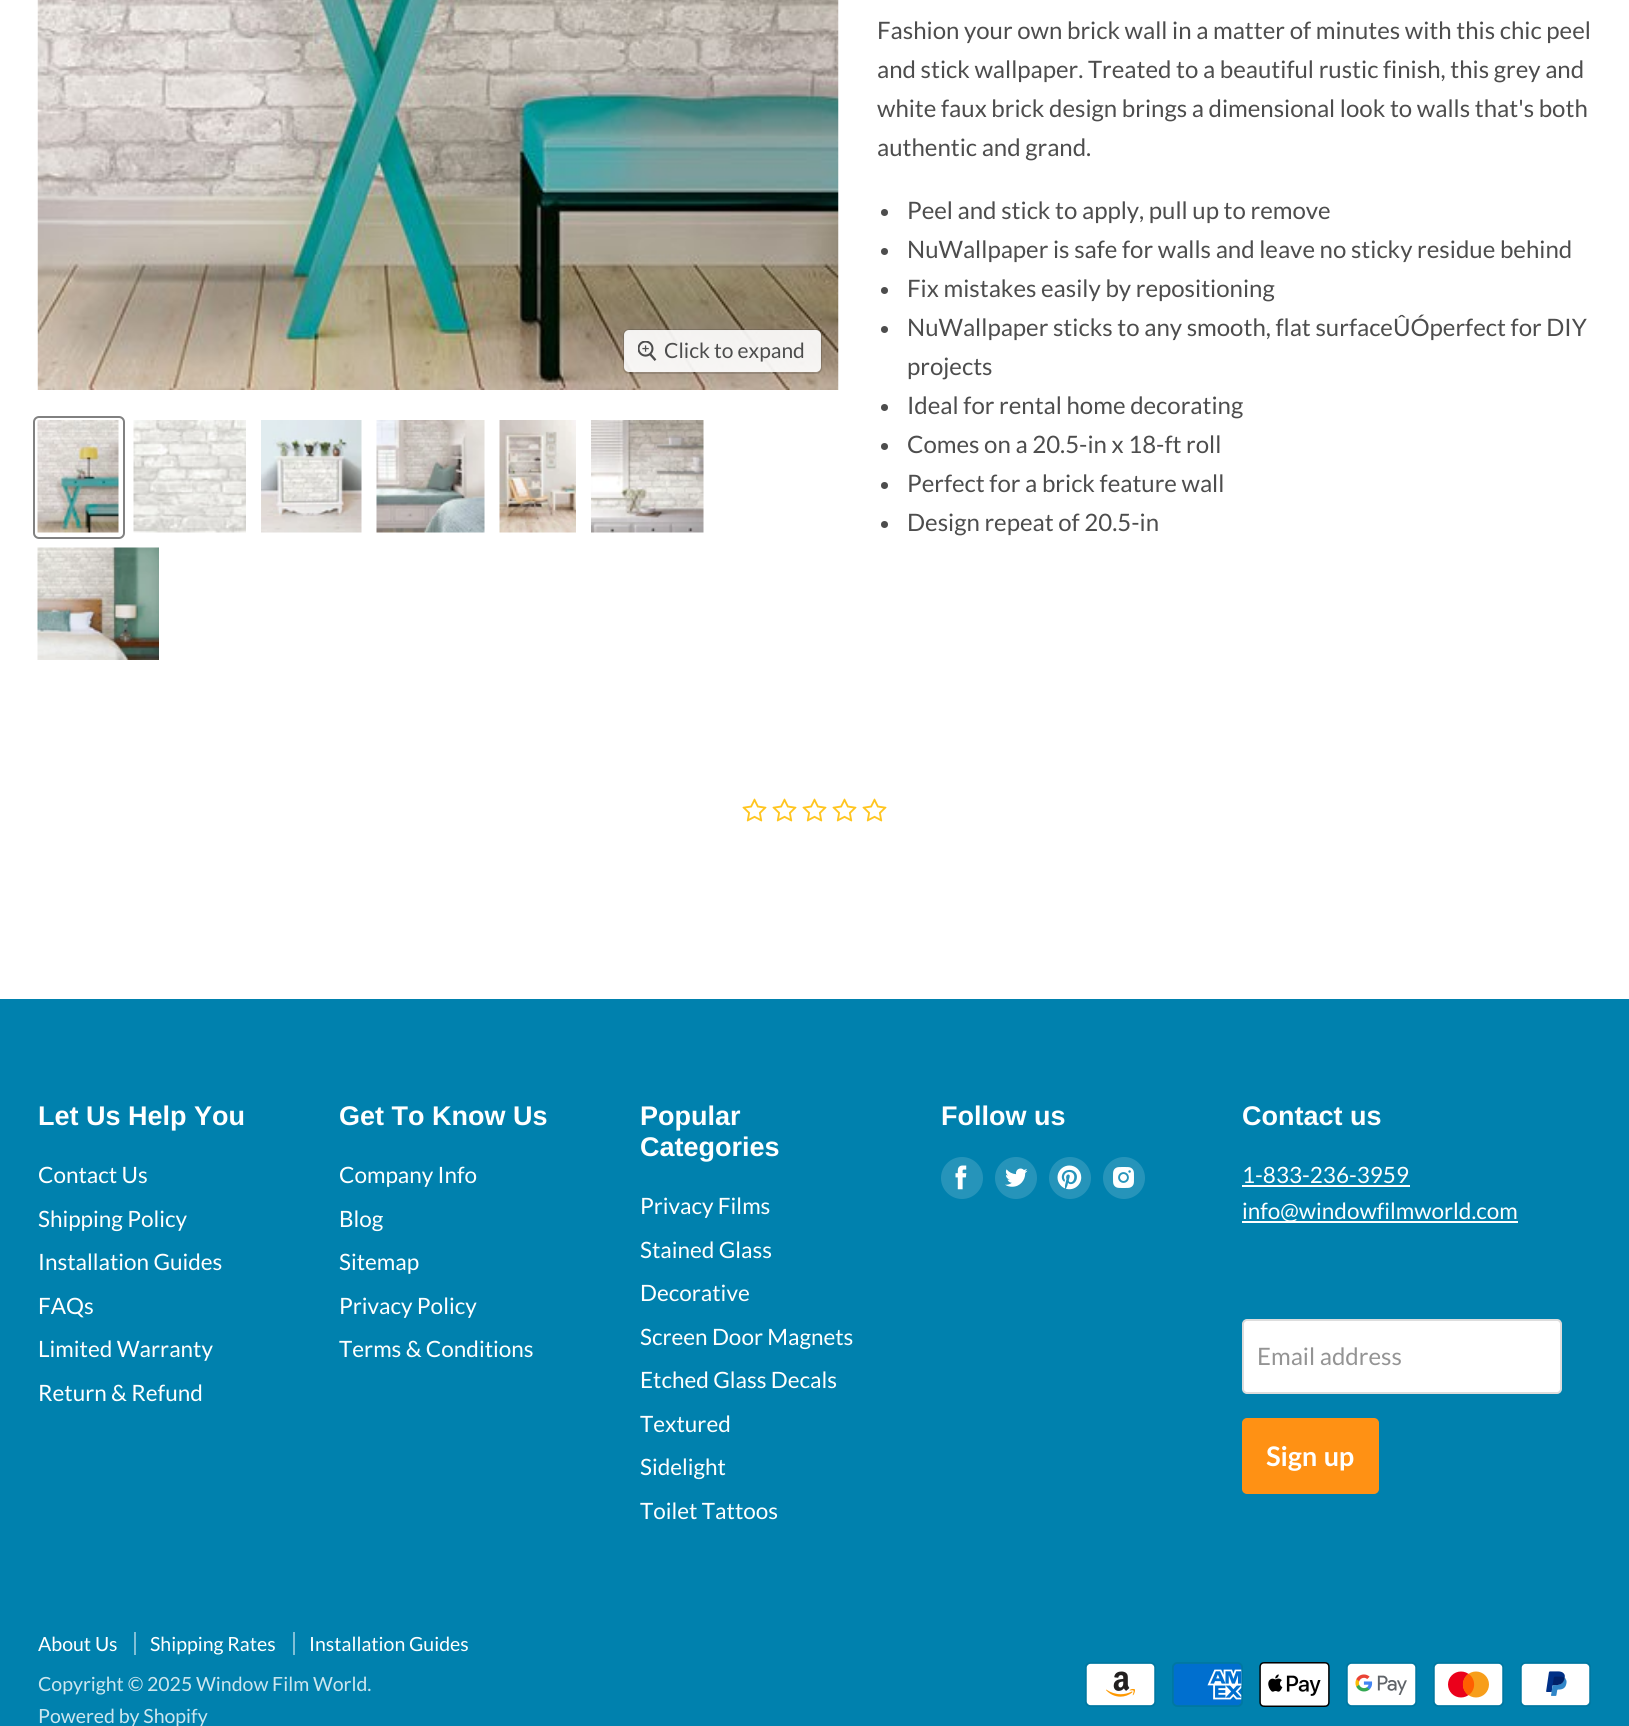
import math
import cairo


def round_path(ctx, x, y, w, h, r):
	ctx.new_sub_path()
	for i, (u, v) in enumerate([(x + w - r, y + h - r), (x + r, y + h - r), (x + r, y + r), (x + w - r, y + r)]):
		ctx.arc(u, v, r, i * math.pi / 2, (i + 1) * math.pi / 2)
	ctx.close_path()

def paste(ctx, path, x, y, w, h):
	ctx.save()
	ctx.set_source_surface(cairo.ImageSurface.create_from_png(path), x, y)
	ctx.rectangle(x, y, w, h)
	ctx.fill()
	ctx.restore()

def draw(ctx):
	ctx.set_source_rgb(1, 1, 1)
	ctx.paint()
	paste(ctx, 'media/1.png', 37, 0, 802, 390)
	round_path(ctx, 624, 330, 197, 43, 5)
	ctx.set_source_rgba(0, 0, 0, 0.15)
	ctx.stroke()
	ctx.set_source_rgba(1, 1, 1, 0.9)
	round_path(ctx, 624, 330, 197, 42, 5)
	ctx.fill()
	paste(ctx, 'media/2.png', 638, 341, 19, 20)
	ctx.select_font_face('Lato')
	ctx.set_font_size(21)
	ctx.set_source_rgb(0.302, 0.302, 0.302)
	ctx.move_to(664, 358)
	ctx.show_text('Click to expand')
	round_path(ctx, 34, 417, 90, 121, 5)
	ctx.set_source_rgb(0.506, 0.506, 0.506)
	ctx.stroke()
	paste(ctx, 'media/3.png', 37, 420, 82, 113)
	paste(ctx, 'media/4.png', 133, 420, 113, 113)
	paste(ctx, 'media/5.png', 261, 420, 101, 113)
	paste(ctx, 'media/6.png', 376, 420, 109, 113)
	paste(ctx, 'media/7.png', 499, 420, 77, 113)
	paste(ctx, 'media/8.png', 591, 420, 113, 113)
	paste(ctx, 'media/9.png', 37, 547, 122, 113)
	ctx.set_font_size(24)
	ctx.set_source_rgb(0.302, 0.302, 0.302)
	for x, y, s in [
		(877, 39, 'Fashion your own brick wall in a matter of minutes with this chic peel'),
		(877, 78, 'and stick wallpaper. Treated to a beautiful rustic finish, this grey and'),
		(877, 117, 'white faux brick design brings a dimensional look to walls that\'s both'),
		(877, 156, 'authentic and grand.'),
	]:
		ctx.move_to(x, y)
		ctx.show_text(s)
	ctx.new_path()
	ctx.arc(884.5, 212.5, 3.5, 0, 2 * math.pi)
	ctx.fill()
	ctx.move_to(907, 219)
	ctx.show_text('Peel and stick to apply, pull up to remove')
	ctx.new_path()
	ctx.arc(884.5, 251.5, 3.5, 0, 2 * math.pi)
	ctx.fill()
	ctx.move_to(907, 258)
	ctx.show_text('NuWallpaper is safe for walls and leave no sticky residue behind')
	ctx.new_path()
	ctx.arc(884.5, 290.5, 3.5, 0, 2 * math.pi)
	ctx.fill()
	ctx.move_to(907, 297)
	ctx.show_text('Fix mistakes easily by repositioning')
	ctx.new_path()
	ctx.arc(884.5, 329.5, 3.5, 0, 2 * math.pi)
	ctx.fill()
	ctx.move_to(907, 336)
	ctx.show_text('NuWallpaper sticks to any smooth, flat surfaceÛÓperfect for DIY')
	ctx.move_to(907, 375)
	ctx.show_text('projects')
	ctx.new_path()
	ctx.arc(884.5, 407.5, 3.5, 0, 2 * math.pi)
	ctx.fill()
	ctx.move_to(907, 414)
	ctx.show_text('Ideal for rental home decorating')
	ctx.new_path()
	ctx.arc(884.5, 446.5, 3.5, 0, 2 * math.pi)
	ctx.fill()
	ctx.move_to(907, 453)
	ctx.show_text('Comes on a 20.5-in x 18-ft roll')
	ctx.new_path()
	ctx.arc(884.5, 485.5, 3.5, 0, 2 * math.pi)
	ctx.fill()
	ctx.move_to(907, 492)
	ctx.show_text('Perfect for a brick feature wall')
	ctx.new_path()
	ctx.arc(884.5, 524.5, 3.5, 0, 2 * math.pi)
	ctx.fill()
	ctx.move_to(907, 531)
	ctx.show_text('Design repeat of 20.5-in')
	paste(ctx, 'media/10.png', 742, 798, 25, 24)
	paste(ctx, 'media/10.png', 772, 798, 25, 24)
	paste(ctx, 'media/10.png', 802, 798, 25, 24)
	paste(ctx, 'media/10.png', 832, 798, 25, 24)
	paste(ctx, 'media/10.png', 862, 798, 25, 24)
	ctx.set_source_rgb(0, 0.506, 0.682)
	ctx.rectangle(0, 999, 1629, 727)
	ctx.fill()
	ctx.select_font_face('Liberation Sans', cairo.FONT_SLANT_NORMAL, cairo.FONT_WEIGHT_BOLD)
	ctx.set_font_size(27)
	ctx.set_source_rgb(1, 1, 1)
	ctx.move_to(38, 1125)
	ctx.show_text('Let Us Help You')
	ctx.select_font_face('Lato')
	ctx.set_font_size(22.5)
	for x, y, s in [
		(38, 1183, 'Contact Us'),
		(38, 1227, 'Shipping Policy'),
		(38, 1270, 'Installation Guides'),
		(38, 1314, 'FAQs'),
		(38, 1357, 'Limited Warranty'),
		(38, 1401, 'Return & Refund'),
	]:
		ctx.move_to(x, y)
		ctx.show_text(s)
	ctx.select_font_face('Liberation Sans', cairo.FONT_SLANT_NORMAL, cairo.FONT_WEIGHT_BOLD)
	ctx.set_font_size(27)
	ctx.move_to(339, 1125)
	ctx.show_text('Get To Know Us')
	ctx.select_font_face('Lato')
	ctx.set_font_size(22.5)
	for x, y, s in [
		(339, 1183, 'Company Info'),
		(339, 1227, 'Blog'),
		(339, 1270, 'Sitemap'),
		(339, 1314, 'Privacy Policy'),
		(339, 1357, 'Terms & Conditions'),
	]:
		ctx.move_to(x, y)
		ctx.show_text(s)
	ctx.select_font_face('Liberation Sans', cairo.FONT_SLANT_NORMAL, cairo.FONT_WEIGHT_BOLD)
	ctx.set_font_size(27)
	ctx.move_to(640, 1125)
	ctx.show_text('Popular')
	ctx.move_to(640, 1156)
	ctx.show_text('Categories')
	ctx.select_font_face('Lato')
	ctx.set_font_size(22.5)
	for x, y, s in [
		(640, 1214, 'Privacy Films'),
		(640, 1258, 'Stained Glass'),
		(640, 1301, 'Decorative'),
		(640, 1345, 'Screen Door Magnets'),
		(640, 1388, 'Etched Glass Decals'),
		(640, 1432, 'Textured'),
		(640, 1475, 'Sidelight'),
		(640, 1519, 'Toilet Tattoos'),
	]:
		ctx.move_to(x, y)
		ctx.show_text(s)
	ctx.select_font_face('Liberation Sans', cairo.FONT_SLANT_NORMAL, cairo.FONT_WEIGHT_BOLD)
	ctx.set_font_size(27)
	ctx.move_to(941, 1125)
	ctx.show_text('Follow us')
	ctx.set_source_rgb(0.149, 0.58, 0.729)
	ctx.new_path()
	ctx.arc(962, 1178, 21, 0, 2 * math.pi)
	ctx.fill()
	paste(ctx, 'media/11.png', 955, 1165, 12, 25)
	ctx.arc(1016, 1178, 21, 0, 2 * math.pi)
	ctx.fill()
	paste(ctx, 'media/12.png', 1005, 1168, 23, 19)
	ctx.arc(1070, 1178, 21, 0, 2 * math.pi)
	ctx.fill()
	paste(ctx, 'media/13.png', 1057, 1165, 25, 25)
	ctx.arc(1124, 1178, 21, 0, 2 * math.pi)
	ctx.fill()
	paste(ctx, 'media/14.png', 1113, 1167, 21, 21)
	ctx.set_source_rgb(1, 1, 1)
	ctx.move_to(1242, 1125)
	ctx.show_text('Contact us')
	ctx.select_font_face('Lato')
	ctx.set_font_size(22.5)
	ctx.move_to(1242, 1183)
	ctx.show_text('1-833-236-3959')
	ctx.rectangle(1242, 1185, 168, 2)
	ctx.fill()
	ctx.rectangle(1242, 1221, 276, 2)
	ctx.fill()
	ctx.move_to(1242, 1219)
	ctx.show_text('info@windowfilmworld.com')
	round_path(ctx, 1243, 1320, 318, 73, 4)
	ctx.fill_preserve()
	ctx.set_source_rgb(0.867, 0.867, 0.867)
	ctx.stroke()
	ctx.set_font_size(24)
	ctx.set_source_rgb(0.58, 0.58, 0.58)
	ctx.move_to(1257, 1365)
	ctx.show_text('Email address')
	ctx.set_source_rgb(1, 0.569, 0.082)
	round_path(ctx, 1243, 1419, 135, 74, 4)
	ctx.fill_preserve()
	ctx.stroke()
	ctx.select_font_face('Lato', cairo.FONT_SLANT_NORMAL, cairo.FONT_WEIGHT_BOLD)
	ctx.set_font_size(27)
	ctx.set_source_rgb(1, 1, 1)
	ctx.move_to(1266, 1466)
	ctx.show_text('Sign up')
	ctx.set_source_rgb(0.502, 0.753, 0.843)
	ctx.rectangle(134, 1632, 2, 23)
	ctx.fill()
	ctx.select_font_face('Lato')
	ctx.set_font_size(19.5)
	ctx.set_source_rgb(1, 1, 1)
	ctx.move_to(38, 1651)
	ctx.show_text('About Us')
	ctx.set_source_rgb(0.502, 0.753, 0.843)
	ctx.rectangle(293, 1632, 2, 23)
	ctx.fill()
	ctx.set_source_rgb(1, 1, 1)
	ctx.move_to(150, 1651)
	ctx.show_text('Shipping Rates')
	ctx.move_to(309, 1651)
	ctx.show_text('Installation Guides')
	ctx.set_source_rgb(0.8, 0.902, 0.937)
	ctx.move_to(38, 1691)
	ctx.show_text('Copyright © 2025 Window Film World.')
	ctx.move_to(38, 1723)
	ctx.show_text('Powered by Shopify')
	paste(ctx, 'media/15.png', 1085, 1662, 71, 45)
	paste(ctx, 'media/16.png', 1172, 1662, 71, 45)
	paste(ctx, 'media/17.png', 1259, 1662, 71, 45)
	paste(ctx, 'media/18.png', 1346, 1662, 71, 45)
	paste(ctx, 'media/19.png', 1433, 1662, 71, 45)
	paste(ctx, 'media/20.png', 1520, 1662, 71, 45)


surface = cairo.ImageSurface(cairo.FORMAT_RGB24, 1629, 1726)
ctx = cairo.Context(surface)
options = cairo.FontOptions()
options.set_hint_metrics(cairo.HINT_METRICS_OFF)
options.set_hint_style(cairo.HINT_STYLE_NONE)
ctx.set_font_options(options)
ctx.set_miter_limit(4)
draw(ctx)
surface.write_to_png('image.png')
